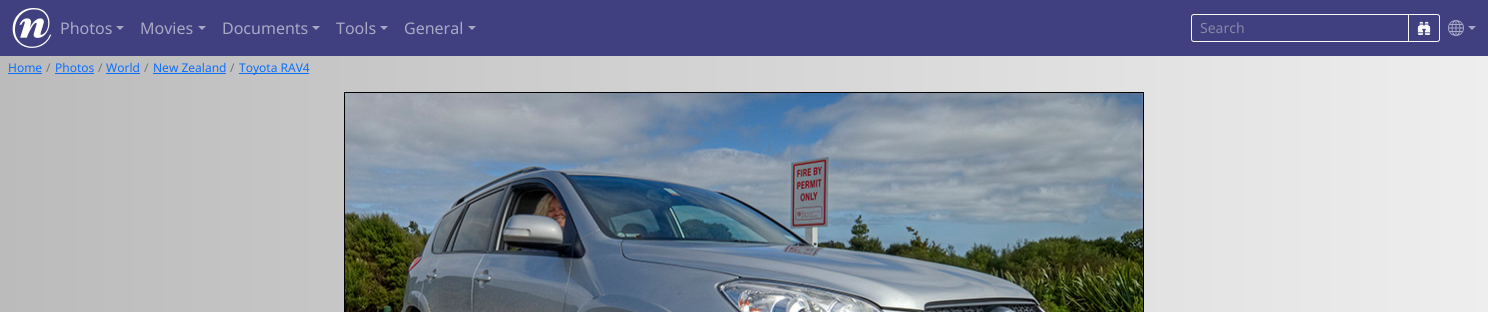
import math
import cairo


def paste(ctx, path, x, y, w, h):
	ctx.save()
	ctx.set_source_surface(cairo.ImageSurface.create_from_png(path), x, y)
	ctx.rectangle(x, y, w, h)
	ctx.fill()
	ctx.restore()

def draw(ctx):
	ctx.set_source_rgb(1, 1, 1)
	ctx.paint()
	gradient = cairo.LinearGradient(0, 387, 1488, 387)
	gradient.add_color_stop_rgba(0, 0.733, 0.733, 0.733, 1)
	gradient.add_color_stop_rgba(1, 0.933, 0.933, 0.933, 1)
	ctx.set_source(gradient)
	ctx.rectangle(0, 56, 1488, 256)
	ctx.fill()
	ctx.set_source_rgb(0.251, 0.251, 0.502)
	ctx.rectangle(0, 0, 1488, 56)
	ctx.fill()
	paste(ctx, 'media/1.png', 12, 8, 40, 40)
	ctx.select_font_face('Noto Sans')
	ctx.set_font_size(16)
	ctx.set_source_rgb(0.663, 0.663, 0.776)
	ctx.move_to(60, 34)
	ctx.show_text('Photos')
	ctx.new_path()
	ctx.move_to(116, 26)
	ctx.line_to(124, 26)
	ctx.line_to(120, 30)
	ctx.close_path()
	ctx.fill()
	ctx.move_to(140, 34)
	ctx.show_text('Movies')
	ctx.new_path()
	ctx.move_to(198, 26)
	ctx.line_to(206, 26)
	ctx.line_to(202, 30)
	ctx.close_path()
	ctx.fill()
	ctx.move_to(222, 34)
	ctx.show_text('Documents')
	ctx.new_path()
	ctx.move_to(312, 26)
	ctx.line_to(320, 26)
	ctx.line_to(316, 30)
	ctx.close_path()
	ctx.fill()
	ctx.move_to(336, 34)
	ctx.show_text('Tools')
	ctx.new_path()
	ctx.move_to(380, 26)
	ctx.line_to(388, 26)
	ctx.line_to(384, 30)
	ctx.close_path()
	ctx.fill()
	ctx.move_to(404, 34)
	ctx.show_text('General')
	ctx.new_path()
	ctx.move_to(468, 26)
	ctx.line_to(476, 26)
	ctx.line_to(472, 30)
	ctx.close_path()
	ctx.fill()
	ctx.new_path()
	ctx.move_to(1194, 14.5)
	ctx.line_to(1408.5, 14.5)
	ctx.line_to(1408.5, 41.5)
	ctx.line_to(1194, 41.5)
	ctx.curve_to(1192.5, 41.5, 1191.5, 40.5, 1191.5, 39)
	ctx.line_to(1191.5, 17)
	ctx.curve_to(1191.5, 15.5, 1192.5, 14.5, 1194, 14.5)
	ctx.close_path()
	ctx.set_source_rgb(0.973, 0.976, 0.98)
	ctx.set_line_width(1)
	ctx.stroke()
	ctx.set_font_size(14)
	ctx.set_source_rgb(0.525, 0.525, 0.651)
	ctx.move_to(1200, 33)
	ctx.show_text('Search')
	ctx.new_path()
	ctx.move_to(1408.5, 14.5)
	ctx.line_to(1437, 14.5)
	ctx.curve_to(1438.5, 14.5, 1439.5, 15.5, 1439.5, 17)
	ctx.line_to(1439.5, 39)
	ctx.curve_to(1439.5, 40.5, 1438.5, 41.5, 1437, 41.5)
	ctx.line_to(1408.5, 41.5)
	ctx.close_path()
	ctx.set_source_rgb(0.973, 0.976, 0.98)
	ctx.stroke()
	paste(ctx, 'media/2.png', 1417, 21, 14, 14)
	paste(ctx, 'media/3.png', 1448, 20, 16, 16)
	ctx.set_source_rgb(0.663, 0.663, 0.776)
	ctx.new_path()
	ctx.move_to(1468, 26)
	ctx.line_to(1476, 26)
	ctx.line_to(1472, 30)
	ctx.close_path()
	ctx.fill()
	ctx.set_font_size(12)
	ctx.set_source_rgb(0.051, 0.431, 0.992)
	ctx.move_to(8, 72)
	ctx.show_text('Home')
	ctx.rectangle(8, 73, 34, 1)
	ctx.fill()
	ctx.set_source_rgb(0.424, 0.459, 0.49)
	ctx.move_to(46, 72)
	ctx.show_text('/')
	ctx.set_source_rgb(0.051, 0.431, 0.992)
	ctx.move_to(55, 72)
	ctx.show_text('Photos')
	ctx.rectangle(55, 73, 39, 1)
	ctx.fill()
	ctx.set_source_rgb(0.424, 0.459, 0.49)
	ctx.move_to(98, 72)
	ctx.show_text('/')
	ctx.set_source_rgb(0.051, 0.431, 0.992)
	ctx.move_to(106, 72)
	ctx.show_text('World')
	ctx.rectangle(106, 73, 34, 1)
	ctx.fill()
	ctx.set_source_rgb(0.424, 0.459, 0.49)
	ctx.move_to(144, 72)
	ctx.show_text('/')
	ctx.set_source_rgb(0.051, 0.431, 0.992)
	ctx.move_to(153, 72)
	ctx.show_text('New Zealand')
	ctx.rectangle(153, 73, 73, 1)
	ctx.fill()
	ctx.set_source_rgb(0.424, 0.459, 0.49)
	ctx.move_to(230, 72)
	ctx.show_text('/')
	ctx.set_source_rgb(0.051, 0.431, 0.992)
	ctx.rectangle(239, 73, 70, 1)
	ctx.fill()
	ctx.move_to(239, 72)
	ctx.show_text('Toyota RAV4')
	ctx.rectangle(344.5, 92.5, 799, 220)
	ctx.set_source_rgb(0, 0, 0)
	ctx.stroke()
	paste(ctx, 'media/4.png', 345, 93, 798, 219)


surface = cairo.ImageSurface(cairo.FORMAT_RGB24, 1488, 312)
ctx = cairo.Context(surface)
options = cairo.FontOptions()
options.set_hint_metrics(cairo.HINT_METRICS_OFF)
options.set_hint_style(cairo.HINT_STYLE_NONE)
ctx.set_font_options(options)
ctx.set_miter_limit(4)
draw(ctx)
surface.write_to_png('image.png')
